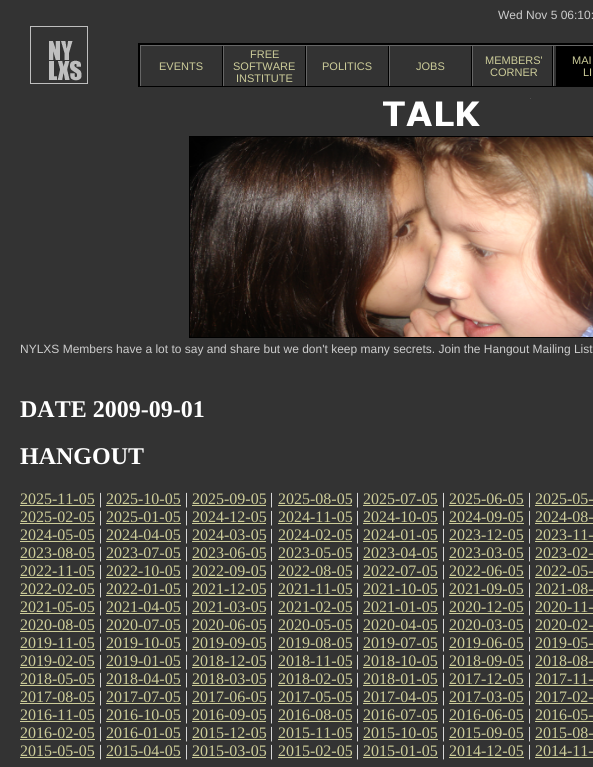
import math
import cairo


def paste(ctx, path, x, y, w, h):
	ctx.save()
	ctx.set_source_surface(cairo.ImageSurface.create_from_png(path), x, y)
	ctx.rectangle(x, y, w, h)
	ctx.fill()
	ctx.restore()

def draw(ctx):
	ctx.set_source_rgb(0.2, 0.2, 0.2)
	ctx.paint()
	paste(ctx, 'media/1.png', 30, 26, 58, 58)
	ctx.select_font_face('Liberation Sans')
	ctx.set_font_size(12)
	ctx.set_source_rgb(0.8, 0.8, 0.8)
	ctx.move_to(498, 19)
	ctx.show_text('Wed Nov 5 06:10:')
	ctx.set_source_rgb(0, 0, 0)
	ctx.rectangle(138, 43, 455, 2)
	ctx.rectangle(138, 45, 2, 42)
	ctx.fill()
	ctx.set_source_rgb(0.4, 0.4, 0.4)
	ctx.rectangle(140, 45, 453, 1)
	ctx.rectangle(140, 46, 1, 40)
	ctx.fill()
	ctx.set_font_size(11)
	ctx.set_source_rgb(0.8, 0.8, 0.6)
	ctx.move_to(159, 70)
	ctx.show_text('EVENTS')
	ctx.set_source_rgb(0, 0, 0)
	ctx.rectangle(222, 46, 1, 40)
	ctx.fill()
	ctx.set_source_rgb(0.4, 0.4, 0.4)
	ctx.rectangle(223, 46, 1, 40)
	ctx.fill()
	ctx.set_source_rgb(0.8, 0.8, 0.6)
	for x, y, s in [
		(250, 58, 'FREE'),
		(233, 70, 'SOFTWARE'),
		(236, 82, 'INSTITUTE'),
	]:
		ctx.move_to(x, y)
		ctx.show_text(s)
	ctx.set_source_rgb(0, 0, 0)
	ctx.rectangle(305, 46, 1, 40)
	ctx.fill()
	ctx.set_source_rgb(0.4, 0.4, 0.4)
	ctx.rectangle(306, 46, 1, 40)
	ctx.fill()
	ctx.set_source_rgb(0.8, 0.8, 0.6)
	ctx.move_to(322, 70)
	ctx.show_text('POLITICS')
	ctx.set_source_rgb(0, 0, 0)
	ctx.rectangle(388, 46, 1, 40)
	ctx.fill()
	ctx.set_source_rgb(0.4, 0.4, 0.4)
	ctx.rectangle(389, 46, 1, 40)
	ctx.fill()
	ctx.set_source_rgb(0.8, 0.8, 0.6)
	ctx.move_to(416, 70)
	ctx.show_text('JOBS')
	ctx.set_source_rgb(0, 0, 0)
	ctx.rectangle(471, 46, 1, 40)
	ctx.fill()
	ctx.set_source_rgb(0.4, 0.4, 0.4)
	ctx.rectangle(472, 46, 1, 40)
	ctx.fill()
	ctx.set_source_rgb(0.8, 0.8, 0.6)
	ctx.move_to(485, 64)
	ctx.show_text('MEMBERS\'')
	ctx.move_to(490, 76)
	ctx.show_text('CORNER')
	ctx.set_source_rgb(0, 0, 0)
	ctx.rectangle(552, 46, 1, 40)
	ctx.fill()
	ctx.set_source_rgb(0.4, 0.4, 0.4)
	ctx.rectangle(553, 46, 1, 40)
	ctx.fill()
	ctx.set_source_rgb(0, 0, 0)
	ctx.rectangle(556, 46, 37, 40)
	ctx.fill()
	ctx.set_source_rgb(0.8, 0.8, 0.6)
	ctx.move_to(572, 64)
	ctx.show_text('MAI')
	ctx.move_to(583, 76)
	ctx.show_text('LI')
	ctx.set_source_rgb(0, 0, 0)
	ctx.rectangle(140, 86, 453, 1)
	ctx.fill()
	paste(ctx, 'media/2.png', 383, 98, 148, 28)
	ctx.rectangle(189, 136, 404, 1)
	ctx.fill()
	ctx.rectangle(189, 137, 1, 200)
	ctx.fill()
	paste(ctx, 'media/3.png', 190, 137, 403, 200)
	ctx.rectangle(189, 337, 404, 1)
	ctx.fill()
	ctx.set_font_size(12)
	ctx.set_source_rgb(0.8, 0.8, 0.8)
	ctx.move_to(20, 353)
	ctx.show_text('NYLXS Members have a lot to say and share but we don\'t keep many secrets. Join the Hangout Mailing List')
	ctx.select_font_face('Liberation Serif', cairo.FONT_SLANT_NORMAL, cairo.FONT_WEIGHT_BOLD)
	ctx.set_font_size(24)
	ctx.set_source_rgb(1, 1, 1)
	ctx.move_to(20, 417)
	ctx.show_text('DATE 2009-09-01')
	ctx.move_to(20, 464)
	ctx.show_text('HANGOUT')
	ctx.select_font_face('Liberation Serif')
	ctx.set_font_size(16)
	ctx.set_source_rgb(0.8, 0.8, 0.6)
	ctx.move_to(20, 504)
	ctx.show_text('2025-11-05')
	ctx.rectangle(20, 505, 75, 1)
	ctx.fill()
	ctx.set_source_rgb(1, 1, 1)
	ctx.move_to(99, 504)
	ctx.show_text('|')
	ctx.set_source_rgb(0.8, 0.8, 0.6)
	ctx.move_to(106, 504)
	ctx.show_text('2025-10-05')
	ctx.rectangle(106, 505, 75, 1)
	ctx.fill()
	ctx.set_source_rgb(1, 1, 1)
	ctx.move_to(185, 504)
	ctx.show_text('|')
	ctx.set_source_rgb(0.8, 0.8, 0.6)
	ctx.move_to(192, 504)
	ctx.show_text('2025-09-05')
	ctx.rectangle(192, 505, 74, 1)
	ctx.fill()
	ctx.set_source_rgb(1, 1, 1)
	ctx.move_to(270, 504)
	ctx.show_text('|')
	ctx.set_source_rgb(0.8, 0.8, 0.6)
	ctx.move_to(278, 504)
	ctx.show_text('2025-08-05')
	ctx.rectangle(278, 505, 74, 1)
	ctx.fill()
	ctx.set_source_rgb(1, 1, 1)
	ctx.move_to(356, 504)
	ctx.show_text('|')
	ctx.set_source_rgb(0.8, 0.8, 0.6)
	ctx.move_to(363, 504)
	ctx.show_text('2025-07-05')
	ctx.rectangle(363, 505, 75, 1)
	ctx.fill()
	ctx.set_source_rgb(1, 1, 1)
	ctx.move_to(442, 504)
	ctx.show_text('|')
	ctx.set_source_rgb(0.8, 0.8, 0.6)
	ctx.move_to(449, 504)
	ctx.show_text('2025-06-05')
	ctx.rectangle(449, 505, 75, 1)
	ctx.fill()
	ctx.set_source_rgb(1, 1, 1)
	ctx.move_to(528, 504)
	ctx.show_text('|')
	ctx.set_source_rgb(0.8, 0.8, 0.6)
	ctx.move_to(535, 504)
	ctx.show_text('2025-05-')
	ctx.rectangle(535, 505, 58, 1)
	ctx.fill()
	ctx.move_to(20, 522)
	ctx.show_text('2025-02-05')
	ctx.rectangle(20, 523, 75, 1)
	ctx.fill()
	ctx.set_source_rgb(1, 1, 1)
	ctx.move_to(99, 522)
	ctx.show_text('|')
	ctx.set_source_rgb(0.8, 0.8, 0.6)
	ctx.move_to(106, 522)
	ctx.show_text('2025-01-05')
	ctx.rectangle(106, 523, 75, 1)
	ctx.fill()
	ctx.set_source_rgb(1, 1, 1)
	ctx.move_to(185, 522)
	ctx.show_text('|')
	ctx.set_source_rgb(0.8, 0.8, 0.6)
	ctx.move_to(192, 522)
	ctx.show_text('2024-12-05')
	ctx.rectangle(192, 523, 74, 1)
	ctx.fill()
	ctx.set_source_rgb(1, 1, 1)
	ctx.move_to(270, 522)
	ctx.show_text('|')
	ctx.set_source_rgb(0.8, 0.8, 0.6)
	ctx.move_to(278, 522)
	ctx.show_text('2024-11-05')
	ctx.rectangle(278, 523, 74, 1)
	ctx.fill()
	ctx.set_source_rgb(1, 1, 1)
	ctx.move_to(356, 522)
	ctx.show_text('|')
	ctx.set_source_rgb(0.8, 0.8, 0.6)
	ctx.move_to(363, 522)
	ctx.show_text('2024-10-05')
	ctx.rectangle(363, 523, 75, 1)
	ctx.fill()
	ctx.set_source_rgb(1, 1, 1)
	ctx.move_to(442, 522)
	ctx.show_text('|')
	ctx.set_source_rgb(0.8, 0.8, 0.6)
	ctx.move_to(449, 522)
	ctx.show_text('2024-09-05')
	ctx.rectangle(449, 523, 75, 1)
	ctx.fill()
	ctx.set_source_rgb(1, 1, 1)
	ctx.move_to(528, 522)
	ctx.show_text('|')
	ctx.set_source_rgb(0.8, 0.8, 0.6)
	ctx.move_to(535, 522)
	ctx.show_text('2024-08-')
	ctx.rectangle(535, 523, 58, 1)
	ctx.fill()
	ctx.move_to(20, 540)
	ctx.show_text('2024-05-05')
	ctx.rectangle(20, 541, 75, 1)
	ctx.fill()
	ctx.set_source_rgb(1, 1, 1)
	ctx.move_to(99, 540)
	ctx.show_text('|')
	ctx.set_source_rgb(0.8, 0.8, 0.6)
	ctx.move_to(106, 540)
	ctx.show_text('2024-04-05')
	ctx.rectangle(106, 541, 75, 1)
	ctx.fill()
	ctx.set_source_rgb(1, 1, 1)
	ctx.move_to(185, 540)
	ctx.show_text('|')
	ctx.set_source_rgb(0.8, 0.8, 0.6)
	ctx.move_to(192, 540)
	ctx.show_text('2024-03-05')
	ctx.rectangle(192, 541, 74, 1)
	ctx.fill()
	ctx.set_source_rgb(1, 1, 1)
	ctx.move_to(270, 540)
	ctx.show_text('|')
	ctx.set_source_rgb(0.8, 0.8, 0.6)
	ctx.move_to(278, 540)
	ctx.show_text('2024-02-05')
	ctx.rectangle(278, 541, 74, 1)
	ctx.fill()
	ctx.set_source_rgb(1, 1, 1)
	ctx.move_to(356, 540)
	ctx.show_text('|')
	ctx.set_source_rgb(0.8, 0.8, 0.6)
	ctx.move_to(363, 540)
	ctx.show_text('2024-01-05')
	ctx.rectangle(363, 541, 75, 1)
	ctx.fill()
	ctx.set_source_rgb(1, 1, 1)
	ctx.move_to(442, 540)
	ctx.show_text('|')
	ctx.set_source_rgb(0.8, 0.8, 0.6)
	ctx.move_to(449, 540)
	ctx.show_text('2023-12-05')
	ctx.rectangle(449, 541, 75, 1)
	ctx.fill()
	ctx.set_source_rgb(1, 1, 1)
	ctx.move_to(528, 540)
	ctx.show_text('|')
	ctx.set_source_rgb(0.8, 0.8, 0.6)
	ctx.move_to(535, 540)
	ctx.show_text('2023-11-')
	ctx.rectangle(535, 541, 58, 1)
	ctx.fill()
	ctx.move_to(20, 558)
	ctx.show_text('2023-08-05')
	ctx.rectangle(20, 559, 75, 1)
	ctx.fill()
	ctx.set_source_rgb(1, 1, 1)
	ctx.move_to(99, 558)
	ctx.show_text('|')
	ctx.set_source_rgb(0.8, 0.8, 0.6)
	ctx.move_to(106, 558)
	ctx.show_text('2023-07-05')
	ctx.rectangle(106, 559, 75, 1)
	ctx.fill()
	ctx.set_source_rgb(1, 1, 1)
	ctx.move_to(185, 558)
	ctx.show_text('|')
	ctx.set_source_rgb(0.8, 0.8, 0.6)
	ctx.move_to(192, 558)
	ctx.show_text('2023-06-05')
	ctx.rectangle(192, 559, 74, 1)
	ctx.fill()
	ctx.set_source_rgb(1, 1, 1)
	ctx.move_to(270, 558)
	ctx.show_text('|')
	ctx.set_source_rgb(0.8, 0.8, 0.6)
	ctx.move_to(278, 558)
	ctx.show_text('2023-05-05')
	ctx.rectangle(278, 559, 74, 1)
	ctx.fill()
	ctx.set_source_rgb(1, 1, 1)
	ctx.move_to(356, 558)
	ctx.show_text('|')
	ctx.set_source_rgb(0.8, 0.8, 0.6)
	ctx.move_to(363, 558)
	ctx.show_text('2023-04-05')
	ctx.rectangle(363, 559, 75, 1)
	ctx.fill()
	ctx.set_source_rgb(1, 1, 1)
	ctx.move_to(442, 558)
	ctx.show_text('|')
	ctx.set_source_rgb(0.8, 0.8, 0.6)
	ctx.move_to(449, 558)
	ctx.show_text('2023-03-05')
	ctx.rectangle(449, 559, 75, 1)
	ctx.fill()
	ctx.set_source_rgb(1, 1, 1)
	ctx.move_to(528, 558)
	ctx.show_text('|')
	ctx.set_source_rgb(0.8, 0.8, 0.6)
	ctx.move_to(535, 558)
	ctx.show_text('2023-02-')
	ctx.rectangle(535, 559, 58, 1)
	ctx.fill()
	ctx.move_to(20, 576)
	ctx.show_text('2022-11-05')
	ctx.rectangle(20, 577, 75, 1)
	ctx.fill()
	ctx.set_source_rgb(1, 1, 1)
	ctx.move_to(99, 576)
	ctx.show_text('|')
	ctx.set_source_rgb(0.8, 0.8, 0.6)
	ctx.move_to(106, 576)
	ctx.show_text('2022-10-05')
	ctx.rectangle(106, 577, 75, 1)
	ctx.fill()
	ctx.set_source_rgb(1, 1, 1)
	ctx.move_to(185, 576)
	ctx.show_text('|')
	ctx.set_source_rgb(0.8, 0.8, 0.6)
	ctx.move_to(192, 576)
	ctx.show_text('2022-09-05')
	ctx.rectangle(192, 577, 74, 1)
	ctx.fill()
	ctx.set_source_rgb(1, 1, 1)
	ctx.move_to(270, 576)
	ctx.show_text('|')
	ctx.set_source_rgb(0.8, 0.8, 0.6)
	ctx.move_to(278, 576)
	ctx.show_text('2022-08-05')
	ctx.rectangle(278, 577, 74, 1)
	ctx.fill()
	ctx.set_source_rgb(1, 1, 1)
	ctx.move_to(356, 576)
	ctx.show_text('|')
	ctx.set_source_rgb(0.8, 0.8, 0.6)
	ctx.move_to(363, 576)
	ctx.show_text('2022-07-05')
	ctx.rectangle(363, 577, 75, 1)
	ctx.fill()
	ctx.set_source_rgb(1, 1, 1)
	ctx.move_to(442, 576)
	ctx.show_text('|')
	ctx.set_source_rgb(0.8, 0.8, 0.6)
	ctx.move_to(449, 576)
	ctx.show_text('2022-06-05')
	ctx.rectangle(449, 577, 75, 1)
	ctx.fill()
	ctx.set_source_rgb(1, 1, 1)
	ctx.move_to(528, 576)
	ctx.show_text('|')
	ctx.set_source_rgb(0.8, 0.8, 0.6)
	ctx.move_to(535, 576)
	ctx.show_text('2022-05-')
	ctx.rectangle(535, 577, 58, 1)
	ctx.fill()
	ctx.move_to(20, 594)
	ctx.show_text('2022-02-05')
	ctx.rectangle(20, 595, 75, 1)
	ctx.fill()
	ctx.set_source_rgb(1, 1, 1)
	ctx.move_to(99, 594)
	ctx.show_text('|')
	ctx.set_source_rgb(0.8, 0.8, 0.6)
	ctx.move_to(106, 594)
	ctx.show_text('2022-01-05')
	ctx.rectangle(106, 595, 75, 1)
	ctx.fill()
	ctx.set_source_rgb(1, 1, 1)
	ctx.move_to(185, 594)
	ctx.show_text('|')
	ctx.set_source_rgb(0.8, 0.8, 0.6)
	ctx.move_to(192, 594)
	ctx.show_text('2021-12-05')
	ctx.rectangle(192, 595, 74, 1)
	ctx.fill()
	ctx.set_source_rgb(1, 1, 1)
	ctx.move_to(270, 594)
	ctx.show_text('|')
	ctx.set_source_rgb(0.8, 0.8, 0.6)
	ctx.move_to(278, 594)
	ctx.show_text('2021-11-05')
	ctx.rectangle(278, 595, 74, 1)
	ctx.fill()
	ctx.set_source_rgb(1, 1, 1)
	ctx.move_to(356, 594)
	ctx.show_text('|')
	ctx.set_source_rgb(0.8, 0.8, 0.6)
	ctx.move_to(363, 594)
	ctx.show_text('2021-10-05')
	ctx.rectangle(363, 595, 75, 1)
	ctx.fill()
	ctx.set_source_rgb(1, 1, 1)
	ctx.move_to(442, 594)
	ctx.show_text('|')
	ctx.set_source_rgb(0.8, 0.8, 0.6)
	ctx.move_to(449, 594)
	ctx.show_text('2021-09-05')
	ctx.rectangle(449, 595, 75, 1)
	ctx.fill()
	ctx.set_source_rgb(1, 1, 1)
	ctx.move_to(528, 594)
	ctx.show_text('|')
	ctx.set_source_rgb(0.8, 0.8, 0.6)
	ctx.move_to(535, 594)
	ctx.show_text('2021-08-')
	ctx.rectangle(535, 595, 58, 1)
	ctx.fill()
	ctx.move_to(20, 612)
	ctx.show_text('2021-05-05')
	ctx.rectangle(20, 613, 75, 1)
	ctx.fill()
	ctx.set_source_rgb(1, 1, 1)
	ctx.move_to(99, 612)
	ctx.show_text('|')
	ctx.set_source_rgb(0.8, 0.8, 0.6)
	ctx.move_to(106, 612)
	ctx.show_text('2021-04-05')
	ctx.rectangle(106, 613, 75, 1)
	ctx.fill()
	ctx.set_source_rgb(1, 1, 1)
	ctx.move_to(185, 612)
	ctx.show_text('|')
	ctx.set_source_rgb(0.8, 0.8, 0.6)
	ctx.move_to(192, 612)
	ctx.show_text('2021-03-05')
	ctx.rectangle(192, 613, 74, 1)
	ctx.fill()
	ctx.set_source_rgb(1, 1, 1)
	ctx.move_to(270, 612)
	ctx.show_text('|')
	ctx.set_source_rgb(0.8, 0.8, 0.6)
	ctx.move_to(278, 612)
	ctx.show_text('2021-02-05')
	ctx.rectangle(278, 613, 74, 1)
	ctx.fill()
	ctx.set_source_rgb(1, 1, 1)
	ctx.move_to(356, 612)
	ctx.show_text('|')
	ctx.set_source_rgb(0.8, 0.8, 0.6)
	ctx.move_to(363, 612)
	ctx.show_text('2021-01-05')
	ctx.rectangle(363, 613, 75, 1)
	ctx.fill()
	ctx.set_source_rgb(1, 1, 1)
	ctx.move_to(442, 612)
	ctx.show_text('|')
	ctx.set_source_rgb(0.8, 0.8, 0.6)
	ctx.move_to(449, 612)
	ctx.show_text('2020-12-05')
	ctx.rectangle(449, 613, 75, 1)
	ctx.fill()
	ctx.set_source_rgb(1, 1, 1)
	ctx.move_to(528, 612)
	ctx.show_text('|')
	ctx.set_source_rgb(0.8, 0.8, 0.6)
	ctx.move_to(535, 612)
	ctx.show_text('2020-11-')
	ctx.rectangle(535, 613, 58, 1)
	ctx.fill()
	ctx.move_to(20, 630)
	ctx.show_text('2020-08-05')
	ctx.rectangle(20, 631, 75, 1)
	ctx.fill()
	ctx.set_source_rgb(1, 1, 1)
	ctx.move_to(99, 630)
	ctx.show_text('|')
	ctx.set_source_rgb(0.8, 0.8, 0.6)
	ctx.move_to(106, 630)
	ctx.show_text('2020-07-05')
	ctx.rectangle(106, 631, 75, 1)
	ctx.fill()
	ctx.set_source_rgb(1, 1, 1)
	ctx.move_to(185, 630)
	ctx.show_text('|')
	ctx.set_source_rgb(0.8, 0.8, 0.6)
	ctx.move_to(192, 630)
	ctx.show_text('2020-06-05')
	ctx.rectangle(192, 631, 74, 1)
	ctx.fill()
	ctx.set_source_rgb(1, 1, 1)
	ctx.move_to(270, 630)
	ctx.show_text('|')
	ctx.set_source_rgb(0.8, 0.8, 0.6)
	ctx.move_to(278, 630)
	ctx.show_text('2020-05-05')
	ctx.rectangle(278, 631, 74, 1)
	ctx.fill()
	ctx.set_source_rgb(1, 1, 1)
	ctx.move_to(356, 630)
	ctx.show_text('|')
	ctx.set_source_rgb(0.8, 0.8, 0.6)
	ctx.move_to(363, 630)
	ctx.show_text('2020-04-05')
	ctx.rectangle(363, 631, 75, 1)
	ctx.fill()
	ctx.set_source_rgb(1, 1, 1)
	ctx.move_to(442, 630)
	ctx.show_text('|')
	ctx.set_source_rgb(0.8, 0.8, 0.6)
	ctx.move_to(449, 630)
	ctx.show_text('2020-03-05')
	ctx.rectangle(449, 631, 75, 1)
	ctx.fill()
	ctx.set_source_rgb(1, 1, 1)
	ctx.move_to(528, 630)
	ctx.show_text('|')
	ctx.set_source_rgb(0.8, 0.8, 0.6)
	ctx.move_to(535, 630)
	ctx.show_text('2020-02-')
	ctx.rectangle(535, 631, 58, 1)
	ctx.fill()
	ctx.move_to(20, 648)
	ctx.show_text('2019-11-05')
	ctx.rectangle(20, 649, 75, 1)
	ctx.fill()
	ctx.set_source_rgb(1, 1, 1)
	ctx.move_to(99, 648)
	ctx.show_text('|')
	ctx.set_source_rgb(0.8, 0.8, 0.6)
	ctx.move_to(106, 648)
	ctx.show_text('2019-10-05')
	ctx.rectangle(106, 649, 75, 1)
	ctx.fill()
	ctx.set_source_rgb(1, 1, 1)
	ctx.move_to(185, 648)
	ctx.show_text('|')
	ctx.set_source_rgb(0.8, 0.8, 0.6)
	ctx.move_to(192, 648)
	ctx.show_text('2019-09-05')
	ctx.rectangle(192, 649, 74, 1)
	ctx.fill()
	ctx.set_source_rgb(1, 1, 1)
	ctx.move_to(270, 648)
	ctx.show_text('|')
	ctx.set_source_rgb(0.8, 0.8, 0.6)
	ctx.move_to(278, 648)
	ctx.show_text('2019-08-05')
	ctx.rectangle(278, 649, 74, 1)
	ctx.fill()
	ctx.set_source_rgb(1, 1, 1)
	ctx.move_to(356, 648)
	ctx.show_text('|')
	ctx.set_source_rgb(0.8, 0.8, 0.6)
	ctx.move_to(363, 648)
	ctx.show_text('2019-07-05')
	ctx.rectangle(363, 649, 75, 1)
	ctx.fill()
	ctx.set_source_rgb(1, 1, 1)
	ctx.move_to(442, 648)
	ctx.show_text('|')
	ctx.set_source_rgb(0.8, 0.8, 0.6)
	ctx.move_to(449, 648)
	ctx.show_text('2019-06-05')
	ctx.rectangle(449, 649, 75, 1)
	ctx.fill()
	ctx.set_source_rgb(1, 1, 1)
	ctx.move_to(528, 648)
	ctx.show_text('|')
	ctx.set_source_rgb(0.8, 0.8, 0.6)
	ctx.move_to(535, 648)
	ctx.show_text('2019-05-')
	ctx.rectangle(535, 649, 58, 1)
	ctx.fill()
	ctx.move_to(20, 666)
	ctx.show_text('2019-02-05')
	ctx.rectangle(20, 667, 75, 1)
	ctx.fill()
	ctx.set_source_rgb(1, 1, 1)
	ctx.move_to(99, 666)
	ctx.show_text('|')
	ctx.set_source_rgb(0.8, 0.8, 0.6)
	ctx.move_to(106, 666)
	ctx.show_text('2019-01-05')
	ctx.rectangle(106, 667, 75, 1)
	ctx.fill()
	ctx.set_source_rgb(1, 1, 1)
	ctx.move_to(185, 666)
	ctx.show_text('|')
	ctx.set_source_rgb(0.8, 0.8, 0.6)
	ctx.move_to(192, 666)
	ctx.show_text('2018-12-05')
	ctx.rectangle(192, 667, 74, 1)
	ctx.fill()
	ctx.set_source_rgb(1, 1, 1)
	ctx.move_to(270, 666)
	ctx.show_text('|')
	ctx.set_source_rgb(0.8, 0.8, 0.6)
	ctx.move_to(278, 666)
	ctx.show_text('2018-11-05')
	ctx.rectangle(278, 667, 74, 1)
	ctx.fill()
	ctx.set_source_rgb(1, 1, 1)
	ctx.move_to(356, 666)
	ctx.show_text('|')
	ctx.set_source_rgb(0.8, 0.8, 0.6)
	ctx.move_to(363, 666)
	ctx.show_text('2018-10-05')
	ctx.rectangle(363, 667, 75, 1)
	ctx.fill()
	ctx.set_source_rgb(1, 1, 1)
	ctx.move_to(442, 666)
	ctx.show_text('|')
	ctx.set_source_rgb(0.8, 0.8, 0.6)
	ctx.move_to(449, 666)
	ctx.show_text('2018-09-05')
	ctx.rectangle(449, 667, 75, 1)
	ctx.fill()
	ctx.set_source_rgb(1, 1, 1)
	ctx.move_to(528, 666)
	ctx.show_text('|')
	ctx.set_source_rgb(0.8, 0.8, 0.6)
	ctx.move_to(535, 666)
	ctx.show_text('2018-08-')
	ctx.rectangle(535, 667, 58, 1)
	ctx.fill()
	ctx.move_to(20, 684)
	ctx.show_text('2018-05-05')
	ctx.rectangle(20, 685, 75, 1)
	ctx.fill()
	ctx.set_source_rgb(1, 1, 1)
	ctx.move_to(99, 684)
	ctx.show_text('|')
	ctx.set_source_rgb(0.8, 0.8, 0.6)
	ctx.move_to(106, 684)
	ctx.show_text('2018-04-05')
	ctx.rectangle(106, 685, 75, 1)
	ctx.fill()
	ctx.set_source_rgb(1, 1, 1)
	ctx.move_to(185, 684)
	ctx.show_text('|')
	ctx.set_source_rgb(0.8, 0.8, 0.6)
	ctx.move_to(192, 684)
	ctx.show_text('2018-03-05')
	ctx.rectangle(192, 685, 74, 1)
	ctx.fill()
	ctx.set_source_rgb(1, 1, 1)
	ctx.move_to(270, 684)
	ctx.show_text('|')
	ctx.set_source_rgb(0.8, 0.8, 0.6)
	ctx.move_to(278, 684)
	ctx.show_text('2018-02-05')
	ctx.rectangle(278, 685, 74, 1)
	ctx.fill()
	ctx.set_source_rgb(1, 1, 1)
	ctx.move_to(356, 684)
	ctx.show_text('|')
	ctx.set_source_rgb(0.8, 0.8, 0.6)
	ctx.move_to(363, 684)
	ctx.show_text('2018-01-05')
	ctx.rectangle(363, 685, 75, 1)
	ctx.fill()
	ctx.set_source_rgb(1, 1, 1)
	ctx.move_to(442, 684)
	ctx.show_text('|')
	ctx.set_source_rgb(0.8, 0.8, 0.6)
	ctx.move_to(449, 684)
	ctx.show_text('2017-12-05')
	ctx.rectangle(449, 685, 75, 1)
	ctx.fill()
	ctx.set_source_rgb(1, 1, 1)
	ctx.move_to(528, 684)
	ctx.show_text('|')
	ctx.set_source_rgb(0.8, 0.8, 0.6)
	ctx.move_to(535, 684)
	ctx.show_text('2017-11-')
	ctx.rectangle(535, 685, 58, 1)
	ctx.fill()
	ctx.move_to(20, 702)
	ctx.show_text('2017-08-05')
	ctx.rectangle(20, 703, 75, 1)
	ctx.fill()
	ctx.set_source_rgb(1, 1, 1)
	ctx.move_to(99, 702)
	ctx.show_text('|')
	ctx.set_source_rgb(0.8, 0.8, 0.6)
	ctx.move_to(106, 702)
	ctx.show_text('2017-07-05')
	ctx.rectangle(106, 703, 75, 1)
	ctx.fill()
	ctx.set_source_rgb(1, 1, 1)
	ctx.move_to(185, 702)
	ctx.show_text('|')
	ctx.set_source_rgb(0.8, 0.8, 0.6)
	ctx.move_to(192, 702)
	ctx.show_text('2017-06-05')
	ctx.rectangle(192, 703, 74, 1)
	ctx.fill()
	ctx.set_source_rgb(1, 1, 1)
	ctx.move_to(270, 702)
	ctx.show_text('|')
	ctx.set_source_rgb(0.8, 0.8, 0.6)
	ctx.move_to(278, 702)
	ctx.show_text('2017-05-05')
	ctx.rectangle(278, 703, 74, 1)
	ctx.fill()
	ctx.set_source_rgb(1, 1, 1)
	ctx.move_to(356, 702)
	ctx.show_text('|')
	ctx.set_source_rgb(0.8, 0.8, 0.6)
	ctx.move_to(363, 702)
	ctx.show_text('2017-04-05')
	ctx.rectangle(363, 703, 75, 1)
	ctx.fill()
	ctx.set_source_rgb(1, 1, 1)
	ctx.move_to(442, 702)
	ctx.show_text('|')
	ctx.set_source_rgb(0.8, 0.8, 0.6)
	ctx.move_to(449, 702)
	ctx.show_text('2017-03-05')
	ctx.rectangle(449, 703, 75, 1)
	ctx.fill()
	ctx.set_source_rgb(1, 1, 1)
	ctx.move_to(528, 702)
	ctx.show_text('|')
	ctx.set_source_rgb(0.8, 0.8, 0.6)
	ctx.move_to(535, 702)
	ctx.show_text('2017-02-')
	ctx.rectangle(535, 703, 58, 1)
	ctx.fill()
	ctx.move_to(20, 720)
	ctx.show_text('2016-11-05')
	ctx.rectangle(20, 721, 75, 1)
	ctx.fill()
	ctx.set_source_rgb(1, 1, 1)
	ctx.move_to(99, 720)
	ctx.show_text('|')
	ctx.set_source_rgb(0.8, 0.8, 0.6)
	ctx.move_to(106, 720)
	ctx.show_text('2016-10-05')
	ctx.rectangle(106, 721, 75, 1)
	ctx.fill()
	ctx.set_source_rgb(1, 1, 1)
	ctx.move_to(185, 720)
	ctx.show_text('|')
	ctx.set_source_rgb(0.8, 0.8, 0.6)
	ctx.move_to(192, 720)
	ctx.show_text('2016-09-05')
	ctx.rectangle(192, 721, 74, 1)
	ctx.fill()
	ctx.set_source_rgb(1, 1, 1)
	ctx.move_to(270, 720)
	ctx.show_text('|')
	ctx.set_source_rgb(0.8, 0.8, 0.6)
	ctx.move_to(278, 720)
	ctx.show_text('2016-08-05')
	ctx.rectangle(278, 721, 74, 1)
	ctx.fill()
	ctx.set_source_rgb(1, 1, 1)
	ctx.move_to(356, 720)
	ctx.show_text('|')
	ctx.set_source_rgb(0.8, 0.8, 0.6)
	ctx.move_to(363, 720)
	ctx.show_text('2016-07-05')
	ctx.rectangle(363, 721, 75, 1)
	ctx.fill()
	ctx.set_source_rgb(1, 1, 1)
	ctx.move_to(442, 720)
	ctx.show_text('|')
	ctx.set_source_rgb(0.8, 0.8, 0.6)
	ctx.move_to(449, 720)
	ctx.show_text('2016-06-05')
	ctx.rectangle(449, 721, 75, 1)
	ctx.fill()
	ctx.set_source_rgb(1, 1, 1)
	ctx.move_to(528, 720)
	ctx.show_text('|')
	ctx.set_source_rgb(0.8, 0.8, 0.6)
	ctx.move_to(535, 720)
	ctx.show_text('2016-05-')
	ctx.rectangle(535, 721, 58, 1)
	ctx.fill()
	ctx.move_to(20, 738)
	ctx.show_text('2016-02-05')
	ctx.rectangle(20, 739, 75, 1)
	ctx.fill()
	ctx.set_source_rgb(1, 1, 1)
	ctx.move_to(99, 738)
	ctx.show_text('|')
	ctx.set_source_rgb(0.8, 0.8, 0.6)
	ctx.move_to(106, 738)
	ctx.show_text('2016-01-05')
	ctx.rectangle(106, 739, 75, 1)
	ctx.fill()
	ctx.set_source_rgb(1, 1, 1)
	ctx.move_to(185, 738)
	ctx.show_text('|')
	ctx.set_source_rgb(0.8, 0.8, 0.6)
	ctx.move_to(192, 738)
	ctx.show_text('2015-12-05')
	ctx.rectangle(192, 739, 74, 1)
	ctx.fill()
	ctx.set_source_rgb(1, 1, 1)
	ctx.move_to(270, 738)
	ctx.show_text('|')
	ctx.set_source_rgb(0.8, 0.8, 0.6)
	ctx.move_to(278, 738)
	ctx.show_text('2015-11-05')
	ctx.rectangle(278, 739, 74, 1)
	ctx.fill()
	ctx.set_source_rgb(1, 1, 1)
	ctx.move_to(356, 738)
	ctx.show_text('|')
	ctx.set_source_rgb(0.8, 0.8, 0.6)
	ctx.move_to(363, 738)
	ctx.show_text('2015-10-05')
	ctx.rectangle(363, 739, 75, 1)
	ctx.fill()
	ctx.set_source_rgb(1, 1, 1)
	ctx.move_to(442, 738)
	ctx.show_text('|')
	ctx.set_source_rgb(0.8, 0.8, 0.6)
	ctx.move_to(449, 738)
	ctx.show_text('2015-09-05')
	ctx.rectangle(449, 739, 75, 1)
	ctx.fill()
	ctx.set_source_rgb(1, 1, 1)
	ctx.move_to(528, 738)
	ctx.show_text('|')
	ctx.set_source_rgb(0.8, 0.8, 0.6)
	ctx.move_to(535, 738)
	ctx.show_text('2015-08-')
	ctx.rectangle(535, 739, 58, 1)
	ctx.fill()
	ctx.move_to(20, 756)
	ctx.show_text('2015-05-05')
	ctx.rectangle(20, 757, 75, 1)
	ctx.fill()
	ctx.set_source_rgb(1, 1, 1)
	ctx.move_to(99, 756)
	ctx.show_text('|')
	ctx.set_source_rgb(0.8, 0.8, 0.6)
	ctx.move_to(106, 756)
	ctx.show_text('2015-04-05')
	ctx.rectangle(106, 757, 75, 1)
	ctx.fill()
	ctx.set_source_rgb(1, 1, 1)
	ctx.move_to(185, 756)
	ctx.show_text('|')
	ctx.set_source_rgb(0.8, 0.8, 0.6)
	ctx.move_to(192, 756)
	ctx.show_text('2015-03-05')
	ctx.rectangle(192, 757, 74, 1)
	ctx.fill()
	ctx.set_source_rgb(1, 1, 1)
	ctx.move_to(270, 756)
	ctx.show_text('|')
	ctx.set_source_rgb(0.8, 0.8, 0.6)
	ctx.move_to(278, 756)
	ctx.show_text('2015-02-05')
	ctx.rectangle(278, 757, 74, 1)
	ctx.fill()
	ctx.set_source_rgb(1, 1, 1)
	ctx.move_to(356, 756)
	ctx.show_text('|')
	ctx.set_source_rgb(0.8, 0.8, 0.6)
	ctx.move_to(363, 756)
	ctx.show_text('2015-01-05')
	ctx.rectangle(363, 757, 75, 1)
	ctx.fill()
	ctx.set_source_rgb(1, 1, 1)
	ctx.move_to(442, 756)
	ctx.show_text('|')
	ctx.set_source_rgb(0.8, 0.8, 0.6)
	ctx.move_to(449, 756)
	ctx.show_text('2014-12-05')
	ctx.rectangle(449, 757, 75, 1)
	ctx.fill()
	ctx.set_source_rgb(1, 1, 1)
	ctx.move_to(528, 756)
	ctx.show_text('|')
	ctx.set_source_rgb(0.8, 0.8, 0.6)
	ctx.move_to(535, 756)
	ctx.show_text('2014-11-')
	ctx.rectangle(535, 757, 58, 1)
	ctx.fill()


surface = cairo.ImageSurface(cairo.FORMAT_RGB24, 593, 767)
ctx = cairo.Context(surface)
options = cairo.FontOptions()
options.set_hint_metrics(cairo.HINT_METRICS_OFF)
options.set_hint_style(cairo.HINT_STYLE_NONE)
ctx.set_font_options(options)
ctx.set_miter_limit(4)
draw(ctx)
surface.write_to_png('image.png')
